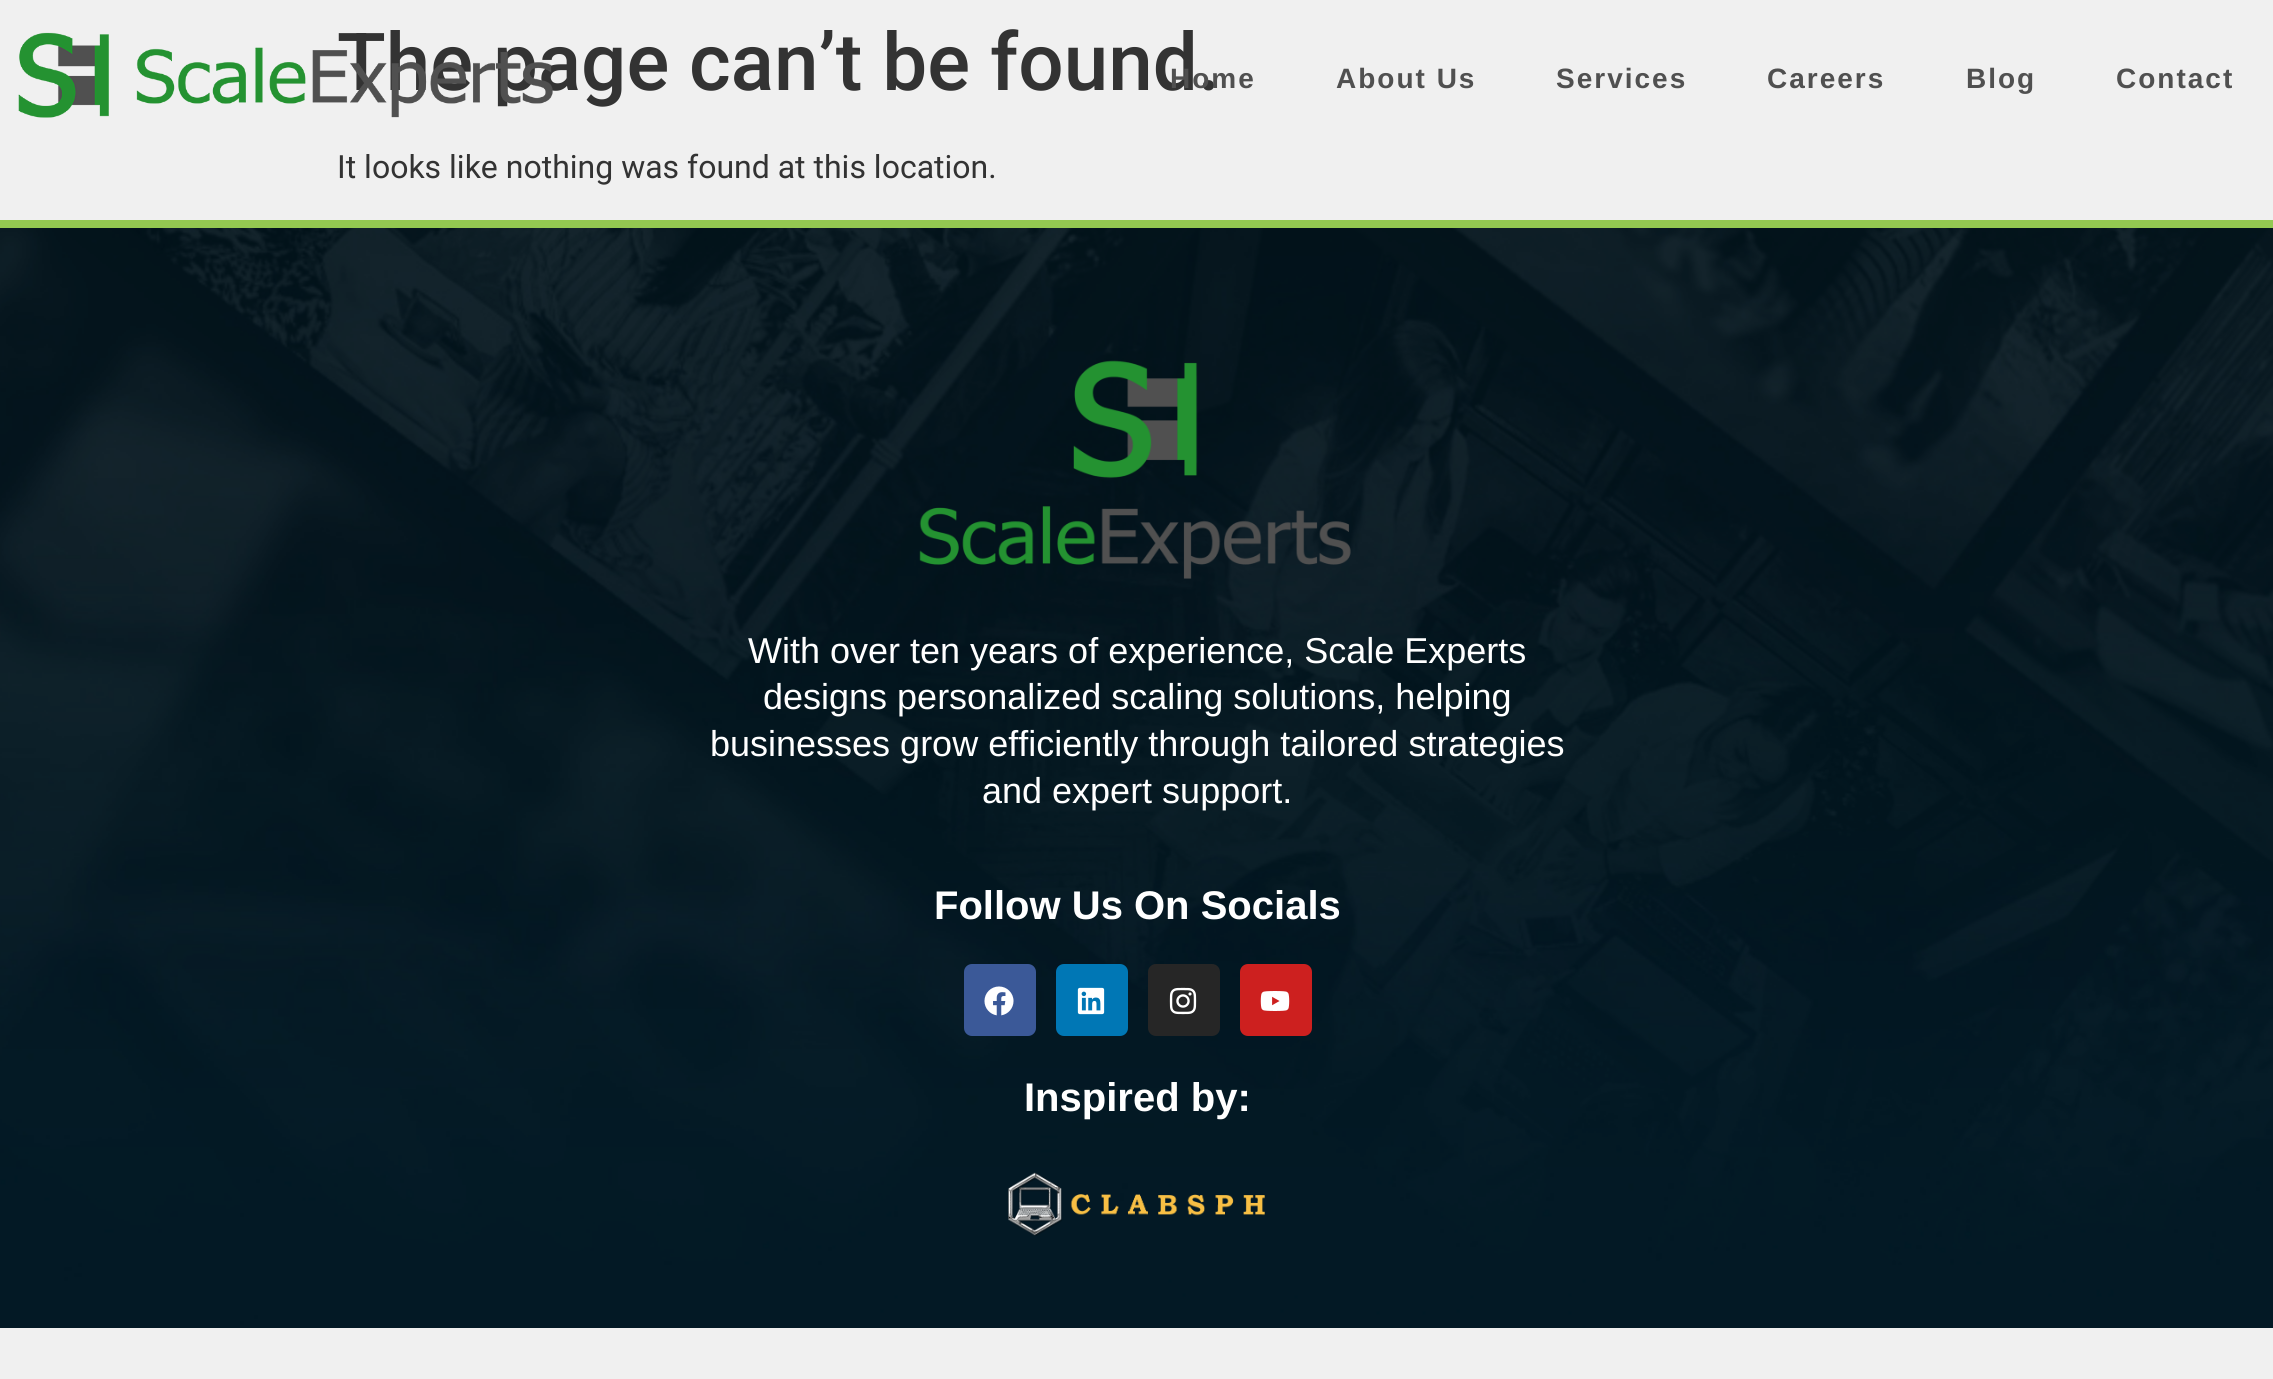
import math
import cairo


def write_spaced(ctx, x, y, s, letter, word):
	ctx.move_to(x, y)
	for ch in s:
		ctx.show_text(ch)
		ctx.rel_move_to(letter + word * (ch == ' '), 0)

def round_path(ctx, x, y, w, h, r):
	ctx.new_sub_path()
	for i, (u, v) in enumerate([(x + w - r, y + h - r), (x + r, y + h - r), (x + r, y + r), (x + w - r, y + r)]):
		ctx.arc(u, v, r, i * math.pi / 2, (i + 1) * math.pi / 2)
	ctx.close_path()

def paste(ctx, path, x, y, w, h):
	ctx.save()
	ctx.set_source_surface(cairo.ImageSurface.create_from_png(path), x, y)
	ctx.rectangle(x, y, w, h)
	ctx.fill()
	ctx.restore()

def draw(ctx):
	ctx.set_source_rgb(0.941, 0.941, 0.941)
	ctx.paint()
	ctx.select_font_face('Roboto Medium')
	ctx.set_font_size(80)
	ctx.set_source_rgb(0.2, 0.2, 0.2)
	ctx.move_to(337, 90)
	ctx.show_text('The page can’t be found.')
	ctx.select_font_face('Roboto')
	ctx.set_font_size(32)
	ctx.move_to(337, 178)
	ctx.show_text('It looks like nothing was found at this location.')
	paste(ctx, 'media/1.png', 18, 32, 535, 86)
	ctx.select_font_face('Liberation Sans', cairo.FONT_SLANT_NORMAL, cairo.FONT_WEIGHT_BOLD)
	ctx.set_font_size(28)
	ctx.set_source_rgb(0.314, 0.314, 0.314)
	for x, y, s in [
		(1170, 88, 'Home'),
		(1336, 88, 'About Us'),
		(1556, 88, 'Services'),
		(1767, 88, 'Careers'),
		(1966, 88, 'Blog'),
		(2116, 88, 'Contact'),
	]:
		write_spaced(ctx, x, y, s, 2, 0)
	paste(ctx, 'media/2.png', 0, 228, 2273, 1100)
	ctx.set_source_rgb(0.576, 0.784, 0.318)
	ctx.rectangle(0, 220, 2273, 8)
	ctx.fill()
	paste(ctx, 'media/3.png', 919, 360, 432, 219)
	ctx.select_font_face('Liberation Sans')
	ctx.set_font_size(36)
	ctx.set_source_rgb(1, 1, 1)
	for x, y, s in [
		(748, 663, 'With over ten years of experience, Scale Experts'),
		(763, 709, 'designs personalized scaling solutions, helping'),
		(710, 756, 'businesses grow efficiently through tailored strategies'),
		(982, 803, 'and expert support.'),
	]:
		ctx.move_to(x, y)
		ctx.show_text(s)
	ctx.select_font_face('Liberation Sans', cairo.FONT_SLANT_NORMAL, cairo.FONT_WEIGHT_BOLD)
	ctx.set_font_size(40)
	ctx.move_to(934, 919)
	ctx.show_text('Follow Us On Socials')
	ctx.set_source_rgb(0.231, 0.349, 0.596)
	round_path(ctx, 964, 964, 72, 72, 8)
	ctx.fill()
	paste(ctx, 'media/4.png', 984, 986, 30, 30)
	ctx.set_source_rgb(0, 0.467, 0.71)
	round_path(ctx, 1056, 964, 72, 72, 8)
	ctx.fill()
	paste(ctx, 'media/5.png', 1077, 987, 28, 28)
	ctx.set_source_rgb(0.149, 0.149, 0.149)
	round_path(ctx, 1148, 964, 72, 72, 8)
	ctx.fill()
	paste(ctx, 'media/6.png', 1169, 987, 28, 28)
	ctx.set_source_rgb(0.804, 0.125, 0.122)
	round_path(ctx, 1240, 964, 72, 72, 8)
	ctx.fill()
	paste(ctx, 'media/7.png', 1260, 991, 30, 20)
	ctx.set_source_rgb(1, 1, 1)
	ctx.move_to(1024, 1111)
	ctx.show_text('Inspired by:')
	paste(ctx, 'media/8.png', 1008, 1172, 257, 64)


surface = cairo.ImageSurface(cairo.FORMAT_RGB24, 2273, 1379)
ctx = cairo.Context(surface)
options = cairo.FontOptions()
options.set_hint_metrics(cairo.HINT_METRICS_OFF)
options.set_hint_style(cairo.HINT_STYLE_NONE)
ctx.set_font_options(options)
ctx.set_miter_limit(4)
draw(ctx)
surface.write_to_png('image.png')
